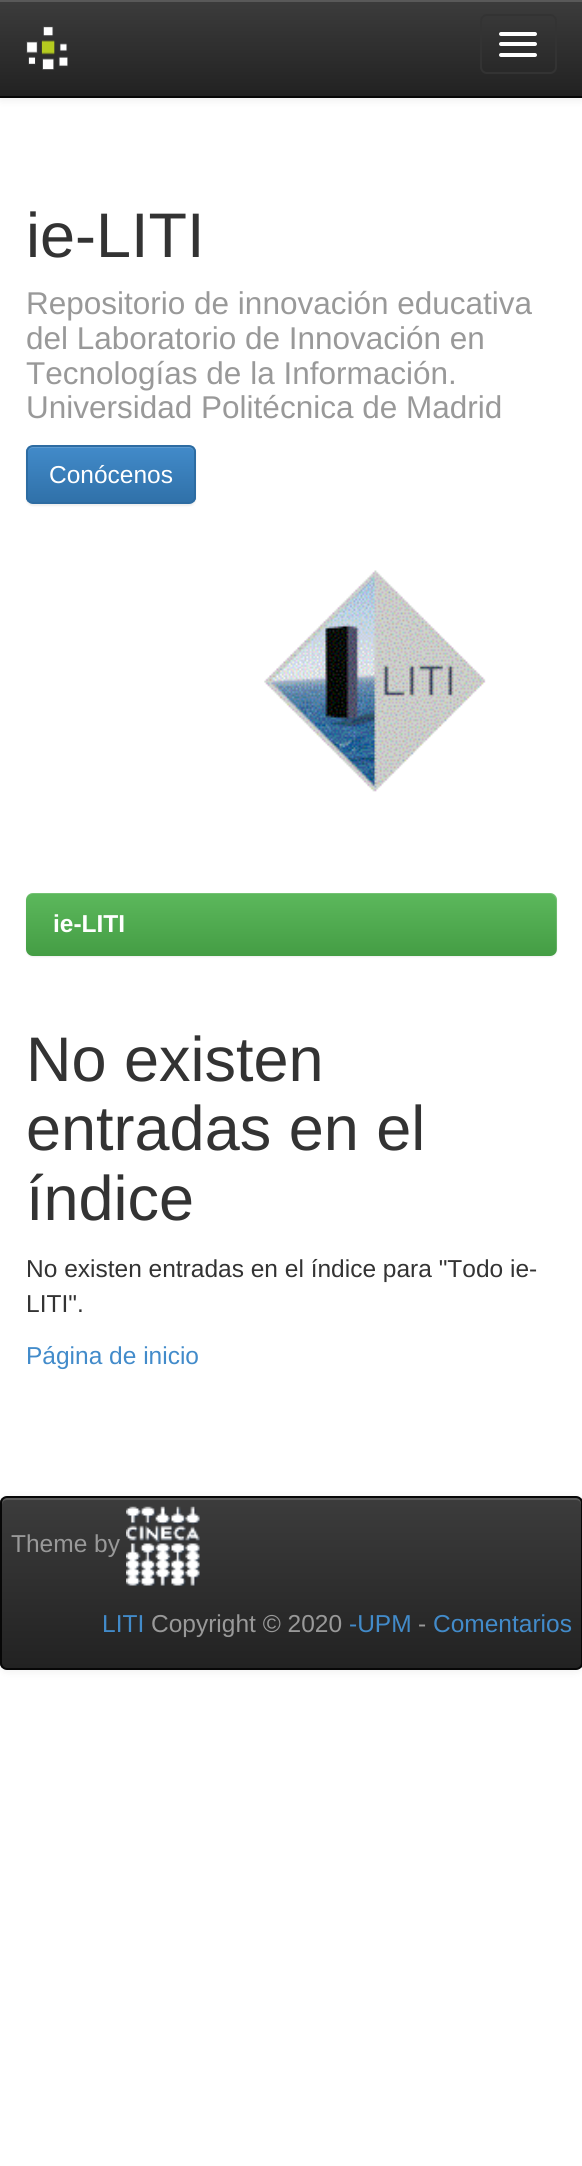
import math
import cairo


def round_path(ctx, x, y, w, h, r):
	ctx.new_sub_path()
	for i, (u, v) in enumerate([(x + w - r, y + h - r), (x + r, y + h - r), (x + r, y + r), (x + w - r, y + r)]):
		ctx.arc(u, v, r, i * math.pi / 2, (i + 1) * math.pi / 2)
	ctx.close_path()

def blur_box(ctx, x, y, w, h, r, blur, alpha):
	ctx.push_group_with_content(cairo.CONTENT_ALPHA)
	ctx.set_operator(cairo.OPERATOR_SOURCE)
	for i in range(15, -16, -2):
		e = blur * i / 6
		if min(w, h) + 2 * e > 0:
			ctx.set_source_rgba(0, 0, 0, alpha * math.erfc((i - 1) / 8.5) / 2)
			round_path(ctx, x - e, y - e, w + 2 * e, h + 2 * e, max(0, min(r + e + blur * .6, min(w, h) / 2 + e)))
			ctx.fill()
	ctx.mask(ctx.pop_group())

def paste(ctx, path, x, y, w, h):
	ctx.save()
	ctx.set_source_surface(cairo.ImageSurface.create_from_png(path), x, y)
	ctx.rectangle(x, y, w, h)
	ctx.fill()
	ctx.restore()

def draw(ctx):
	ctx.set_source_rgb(1, 1, 1)
	ctx.paint()
	ctx.set_source_rgb(0, 0, 0)
	blur_box(ctx, 0, 2, 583, 98, 0, 4.5, 0.07)
	gradient = cairo.LinearGradient(291, 0, 291, 96)
	gradient.add_color_stop_rgba(0, 0.235, 0.235, 0.235, 1)
	gradient.add_color_stop_rgba(1, 0.133, 0.133, 0.133, 1)
	ctx.set_source(gradient)
	ctx.rectangle(0, 2, 582, 94)
	ctx.fill()
	ctx.set_source_rgb(0.349, 0.349, 0.349)
	ctx.rectangle(0, 0, 582, 2)
	ctx.fill()
	ctx.set_source_rgb(0.031, 0.031, 0.031)
	ctx.rectangle(0, 96, 582, 2)
	ctx.fill()
	paste(ctx, 'media/1.png', 26, 26, 42, 44)
	round_path(ctx, 481, 15, 75, 58, 6)
	ctx.set_source_rgb(0.2, 0.2, 0.2)
	ctx.stroke()
	ctx.set_source_rgb(1, 1, 1)
	round_path(ctx, 499, 32, 38, 4, 2)
	ctx.fill()
	round_path(ctx, 499, 42, 38, 4, 2)
	ctx.fill()
	round_path(ctx, 499, 53, 38, 4, 2)
	ctx.fill()
	ctx.select_font_face('Liberation Sans')
	ctx.set_font_size(63)
	ctx.set_source_rgb(0.2, 0.2, 0.2)
	ctx.move_to(26, 257)
	ctx.show_text('ie-LITI')
	ctx.set_font_size(31.5)
	ctx.set_source_rgb(0.6, 0.6, 0.6)
	for x, y, s in [
		(26, 314, 'Repositorio de innovación educativa'),
		(26, 349, 'del Laboratorio de Innovación en'),
		(26, 384, 'Tecnologías de la Información.'),
		(26, 418, 'Universidad Politécnica de Madrid'),
	]:
		ctx.move_to(x, y)
		ctx.show_text(s)
	ctx.set_source_rgb(0, 0, 0)
	blur_box(ctx, 26, 446, 170, 60, 7, 1, 0.07)
	ctx.save()
	round_path(ctx, 26, 445, 170, 59, 7)
	ctx.clip()
	gradient = cairo.LinearGradient(111, 446, 111, 502)
	gradient.add_color_stop_rgba(0, 0.259, 0.545, 0.792, 1)
	gradient.add_color_stop_rgba(1, 0.188, 0.443, 0.663, 1)
	ctx.set_source(gradient)
	ctx.rectangle(26, 446, 170, 56)
	ctx.fill()
	ctx.restore()
	ctx.set_source_rgba(1, 1, 1, 0.15)
	ctx.new_path()
	ctx.move_to(33, 448)
	ctx.line_to(189, 448)
	ctx.curve_to(192, 448, 194, 450, 194, 453)
	ctx.line_to(194, 451)
	ctx.curve_to(194, 448, 192, 446, 189, 446)
	ctx.line_to(33, 446)
	ctx.curve_to(30, 446, 28, 448, 28, 451)
	ctx.line_to(28, 453)
	ctx.curve_to(28, 450, 30, 448, 33, 448)
	ctx.close_path()
	ctx.fill()
	round_path(ctx, 27, 446, 168, 57, 6)
	ctx.set_source_rgb(0.176, 0.424, 0.635)
	ctx.stroke()
	ctx.set_font_size(24.5)
	ctx.set_source_rgb(1, 1, 1)
	ctx.move_to(49, 483)
	ctx.show_text('Conócenos')
	paste(ctx, 'media/2.png', 264, 570, 222, 222)
	ctx.set_source_rgb(0, 0, 0)
	blur_box(ctx, 26, 894, 531, 63, 7, 1, 0.07)
	gradient = cairo.LinearGradient(291, 893, 291, 956)
	gradient.add_color_stop_rgba(0, 0.361, 0.722, 0.361, 1)
	gradient.add_color_stop_rgba(1, 0.267, 0.616, 0.267, 1)
	ctx.set_source(gradient)
	round_path(ctx, 26, 893, 531, 63, 7)
	ctx.fill()
	ctx.set_source_rgba(1, 1, 1, 0.15)
	ctx.new_path()
	ctx.move_to(33, 894)
	ctx.line_to(550, 894)
	ctx.curve_to(553, 894, 556, 897, 556, 901)
	ctx.line_to(556, 950)
	ctx.curve_to(556, 952, 556, 953, 555, 954)
	ctx.curve_to(556, 953, 557, 951, 557, 949)
	ctx.line_to(557, 900)
	ctx.curve_to(557, 896, 554, 893, 550, 893)
	ctx.line_to(33, 893)
	ctx.curve_to(29, 893, 26, 896, 26, 900)
	ctx.line_to(26, 901)
	ctx.curve_to(26, 897, 29, 894, 33, 894)
	ctx.close_path()
	ctx.fill()
	ctx.select_font_face('Liberation Sans', cairo.FONT_SLANT_NORMAL, cairo.FONT_WEIGHT_BOLD)
	ctx.set_source_rgb(1, 1, 1)
	ctx.move_to(53, 932)
	ctx.show_text('ie-LITI')
	ctx.select_font_face('Liberation Sans')
	ctx.set_font_size(63)
	ctx.set_source_rgb(0.2, 0.2, 0.2)
	for x, y, s in [
		(26, 1081, 'No existen'),
		(26, 1150, 'entradas en el'),
		(26, 1220, 'índice'),
	]:
		ctx.move_to(x, y)
		ctx.show_text(s)
	ctx.set_font_size(24.5)
	ctx.move_to(26, 1277)
	ctx.show_text('No existen entradas en el índice para "Todo ie-')
	ctx.move_to(26, 1312)
	ctx.show_text('LITI".')
	ctx.set_source_rgb(0.259, 0.545, 0.792)
	ctx.move_to(26, 1364)
	ctx.show_text('Página de inicio')
	ctx.set_source_rgb(0, 0, 0)
	blur_box(ctx, 0, 1498, 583, 173, 7, 4.5, 0.07)
	ctx.save()
	round_path(ctx, 0, 1496, 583, 174, 7)
	ctx.clip()
	gradient = cairo.LinearGradient(291, 1498, 291, 1668)
	gradient.add_color_stop_rgba(0, 0.235, 0.235, 0.235, 1)
	gradient.add_color_stop_rgba(1, 0.133, 0.133, 0.133, 1)
	ctx.set_source(gradient)
	ctx.rectangle(0, 1498, 582, 170)
	ctx.fill()
	ctx.restore()
	ctx.set_source_rgb(0.349, 0.349, 0.349)
	ctx.new_path()
	ctx.move_to(7, 1500)
	ctx.line_to(576, 1500)
	ctx.curve_to(579, 1500, 581, 1502, 581, 1505)
	ctx.line_to(581, 1503)
	ctx.curve_to(581, 1500, 579, 1498, 576, 1498)
	ctx.line_to(7, 1498)
	ctx.curve_to(4, 1498, 2, 1500, 2, 1503)
	ctx.line_to(2, 1505)
	ctx.curve_to(2, 1502, 4, 1500, 7, 1500)
	ctx.close_path()
	ctx.fill()
	round_path(ctx, 1, 1497, 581, 172, 6)
	ctx.set_source_rgb(0.031, 0.031, 0.031)
	ctx.stroke()
	ctx.set_source_rgb(0.6, 0.6, 0.6)
	ctx.move_to(11, 1552)
	ctx.show_text('Theme by')
	paste(ctx, 'media/3.png', 126, 1506, 74, 80)
	ctx.set_source_rgb(0.259, 0.545, 0.792)
	ctx.move_to(102, 1632)
	ctx.show_text('LITI')
	ctx.set_source_rgb(0.6, 0.6, 0.6)
	ctx.move_to(151, 1632)
	ctx.show_text('Copyright © 2020')
	ctx.set_source_rgb(0.259, 0.545, 0.792)
	ctx.move_to(349, 1632)
	ctx.show_text('-UPM')
	ctx.set_source_rgb(0.6, 0.6, 0.6)
	ctx.move_to(418, 1632)
	ctx.show_text('-')
	ctx.set_source_rgb(0.259, 0.545, 0.792)
	ctx.move_to(433, 1632)
	ctx.show_text('Comentarios')


surface = cairo.ImageSurface(cairo.FORMAT_RGB24, 582, 2166)
ctx = cairo.Context(surface)
options = cairo.FontOptions()
options.set_hint_metrics(cairo.HINT_METRICS_OFF)
options.set_hint_style(cairo.HINT_STYLE_NONE)
ctx.set_font_options(options)
ctx.set_miter_limit(4)
draw(ctx)
surface.write_to_png('image.png')
